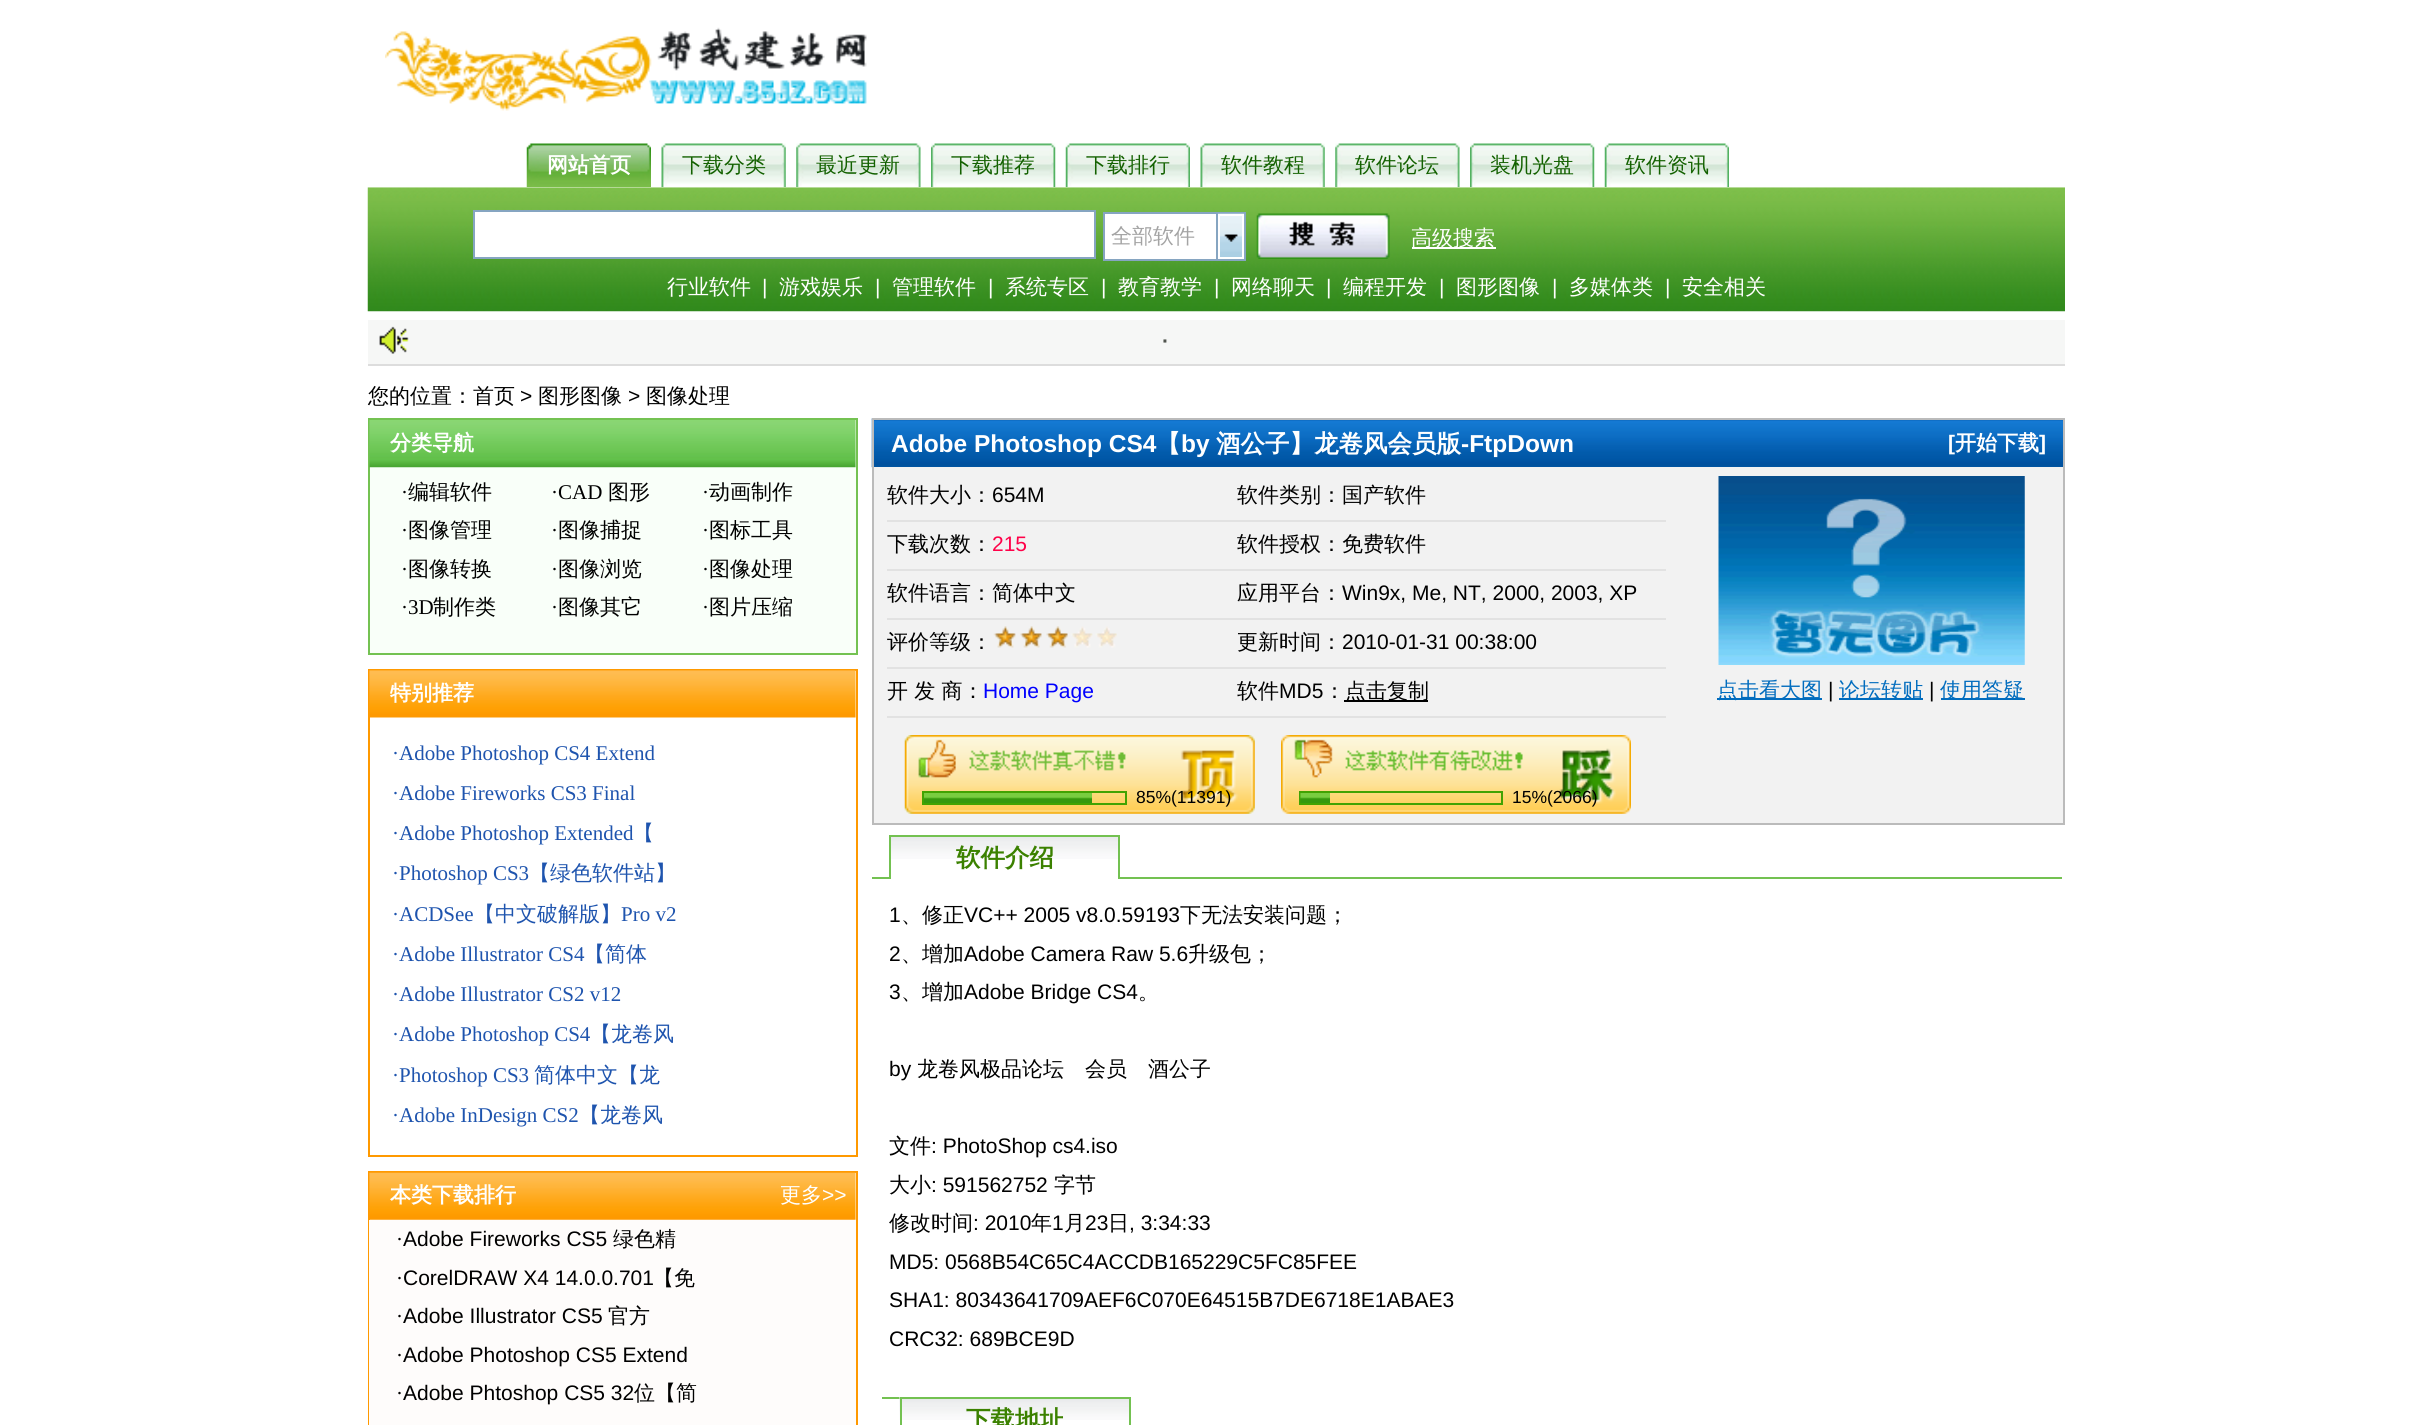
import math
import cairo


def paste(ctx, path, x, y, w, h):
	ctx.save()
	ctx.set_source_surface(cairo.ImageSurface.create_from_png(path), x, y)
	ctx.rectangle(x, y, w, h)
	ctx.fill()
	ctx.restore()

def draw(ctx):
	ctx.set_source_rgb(1, 1, 1)
	ctx.paint()
	paste(ctx, 'media/1.png', 385, 27, 482, 84)
	paste(ctx, 'media/2.png', 526, 143, 125, 45)
	ctx.select_font_face('WenQuanYi Zen Hei', cairo.FONT_SLANT_NORMAL, cairo.FONT_WEIGHT_BOLD)
	ctx.set_font_size(21)
	ctx.set_source_rgb(1, 1, 1)
	ctx.move_to(547, 172)
	ctx.show_text('网站首页')
	paste(ctx, 'media/3.png', 661, 143, 125, 45)
	ctx.select_font_face('WenQuanYi Zen Hei Medium')
	ctx.set_source_rgb(0.075, 0.38, 0)
	ctx.move_to(682, 172)
	ctx.show_text('下载分类')
	paste(ctx, 'media/4.png', 796, 143, 125, 45)
	ctx.move_to(816, 172)
	ctx.show_text('最近更新')
	paste(ctx, 'media/5.png', 931, 143, 125, 45)
	ctx.move_to(951, 172)
	ctx.show_text('下载推荐')
	paste(ctx, 'media/6.png', 1065, 143, 125, 45)
	ctx.move_to(1086, 172)
	ctx.show_text('下载排行')
	paste(ctx, 'media/3.png', 1200, 143, 125, 45)
	ctx.move_to(1221, 172)
	ctx.show_text('软件教程')
	paste(ctx, 'media/4.png', 1335, 143, 125, 45)
	ctx.move_to(1355, 172)
	ctx.show_text('软件论坛')
	paste(ctx, 'media/5.png', 1470, 143, 125, 45)
	ctx.move_to(1490, 172)
	ctx.show_text('装机光盘')
	paste(ctx, 'media/7.png', 1604, 143, 125, 45)
	ctx.move_to(1625, 172)
	ctx.show_text('软件资讯')
	paste(ctx, 'media/8.png', 367, 187, 1698, 125)
	ctx.set_source_rgb(1, 1, 1)
	ctx.rectangle(474, 211, 621, 47)
	ctx.fill_preserve()
	ctx.set_source_rgb(0.525, 0.647, 0.757)
	ctx.stroke()
	ctx.set_source_rgb(1, 1, 1)
	ctx.rectangle(1105, 214, 111, 45)
	ctx.fill()
	ctx.rectangle(1104, 213, 141, 47)
	ctx.set_source_rgb(0.525, 0.647, 0.757)
	ctx.stroke()
	ctx.set_source_rgb(0.643, 0.643, 0.643)
	ctx.move_to(1111, 243)
	ctx.show_text('全部软件')
	ctx.set_source_rgb(0.525, 0.647, 0.757)
	ctx.rectangle(1216, 214, 2, 45)
	ctx.fill()
	paste(ctx, 'media/9.png', 1218, 213, 27, 46)
	ctx.rectangle(1219, 215, 24, 43)
	ctx.set_source_rgb(1, 1, 1)
	ctx.stroke()
	paste(ctx, 'media/10.png', 1256, 213, 134, 46)
	ctx.rectangle(1412, 247, 84, 2)
	ctx.fill()
	ctx.move_to(1411, 245)
	ctx.show_text('高级搜索')
	ctx.move_to(667, 294)
	ctx.show_text('行业软件')
	ctx.select_font_face('Liberation Sans')
	ctx.move_to(762, 294)
	ctx.show_text('|')
	ctx.select_font_face('WenQuanYi Zen Hei Medium')
	ctx.move_to(779, 294)
	ctx.show_text('游戏娱乐')
	ctx.select_font_face('Liberation Sans')
	ctx.move_to(875, 294)
	ctx.show_text('|')
	ctx.select_font_face('WenQuanYi Zen Hei Medium')
	ctx.move_to(892, 294)
	ctx.show_text('管理软件')
	ctx.select_font_face('Liberation Sans')
	ctx.move_to(988, 294)
	ctx.show_text('|')
	ctx.select_font_face('WenQuanYi Zen Hei Medium')
	ctx.move_to(1005, 294)
	ctx.show_text('系统专区')
	ctx.select_font_face('Liberation Sans')
	ctx.move_to(1101, 294)
	ctx.show_text('|')
	ctx.select_font_face('WenQuanYi Zen Hei Medium')
	ctx.move_to(1118, 294)
	ctx.show_text('教育教学')
	ctx.select_font_face('Liberation Sans')
	ctx.move_to(1214, 294)
	ctx.show_text('|')
	ctx.select_font_face('WenQuanYi Zen Hei Medium')
	ctx.move_to(1231, 294)
	ctx.show_text('网络聊天')
	ctx.select_font_face('Liberation Sans')
	ctx.move_to(1326, 294)
	ctx.show_text('|')
	ctx.select_font_face('WenQuanYi Zen Hei Medium')
	ctx.move_to(1343, 294)
	ctx.show_text('编程开发')
	ctx.select_font_face('Liberation Sans')
	ctx.move_to(1439, 294)
	ctx.show_text('|')
	ctx.select_font_face('WenQuanYi Zen Hei Medium')
	ctx.move_to(1456, 294)
	ctx.show_text('图形图像')
	ctx.select_font_face('Liberation Sans')
	ctx.move_to(1552, 294)
	ctx.show_text('|')
	ctx.select_font_face('WenQuanYi Zen Hei Medium')
	ctx.move_to(1569, 294)
	ctx.show_text('多媒体类')
	ctx.select_font_face('Liberation Sans')
	ctx.move_to(1665, 294)
	ctx.show_text('|')
	ctx.select_font_face('WenQuanYi Zen Hei Medium')
	ctx.move_to(1682, 294)
	ctx.show_text('安全相关')
	ctx.set_source_rgb(0.961, 0.965, 0.961)
	ctx.rectangle(368, 320, 1697, 44)
	ctx.fill()
	ctx.set_source_rgb(0.867, 0.867, 0.867)
	ctx.rectangle(368, 364, 1697, 2)
	ctx.fill()
	paste(ctx, 'media/11.png', 379, 326, 30, 28)
	ctx.select_font_face('Liberation Sans', cairo.FONT_SLANT_NORMAL, cairo.FONT_WEIGHT_BOLD)
	ctx.set_source_rgb(0.31, 0.329, 0.302)
	ctx.move_to(1162, 348)
	ctx.show_text('·')
	ctx.select_font_face('WenQuanYi Zen Hei Medium')
	ctx.set_source_rgb(0, 0, 0)
	ctx.move_to(368, 403)
	ctx.show_text('您的位置：首页')
	ctx.select_font_face('Liberation Sans')
	ctx.move_to(520, 403)
	ctx.show_text('>')
	ctx.select_font_face('WenQuanYi Zen Hei Medium')
	ctx.move_to(538, 403)
	ctx.show_text('图形图像')
	ctx.select_font_face('Liberation Sans')
	ctx.move_to(628, 403)
	ctx.show_text('>')
	ctx.select_font_face('WenQuanYi Zen Hei Medium')
	ctx.move_to(646, 403)
	ctx.show_text('图像处理')
	ctx.set_source_rgb(0.973, 1, 0.973)
	ctx.rectangle(369, 419, 488, 235)
	ctx.fill_preserve()
	ctx.set_source_rgb(0.455, 0.761, 0.322)
	ctx.stroke()
	paste(ctx, 'media/12.png', 369, 420, 487, 48)
	ctx.select_font_face('WenQuanYi Zen Hei', cairo.FONT_SLANT_NORMAL, cairo.FONT_WEIGHT_BOLD)
	ctx.set_source_rgb(1, 1, 1)
	ctx.move_to(390, 450)
	ctx.show_text('分类导航')
	ctx.select_font_face('Liberation Serif')
	ctx.set_source_rgb(0, 0, 0)
	ctx.move_to(401, 499)
	ctx.show_text('·')
	ctx.select_font_face('WenQuanYi Zen Hei Medium')
	ctx.move_to(408, 499)
	ctx.show_text('编辑软件')
	ctx.select_font_face('Liberation Serif')
	ctx.move_to(551, 499)
	ctx.show_text('·CAD')
	ctx.select_font_face('WenQuanYi Zen Hei Medium')
	ctx.move_to(608, 499)
	ctx.show_text('图形')
	ctx.select_font_face('Liberation Serif')
	ctx.move_to(702, 499)
	ctx.show_text('·')
	ctx.select_font_face('WenQuanYi Zen Hei Medium')
	ctx.move_to(709, 499)
	ctx.show_text('动画制作')
	ctx.select_font_face('Liberation Serif')
	ctx.move_to(401, 537)
	ctx.show_text('·')
	ctx.select_font_face('WenQuanYi Zen Hei Medium')
	ctx.move_to(408, 537)
	ctx.show_text('图像管理')
	ctx.select_font_face('Liberation Serif')
	ctx.move_to(551, 537)
	ctx.show_text('·')
	ctx.select_font_face('WenQuanYi Zen Hei Medium')
	ctx.move_to(558, 537)
	ctx.show_text('图像捕捉')
	ctx.select_font_face('Liberation Serif')
	ctx.move_to(702, 537)
	ctx.show_text('·')
	ctx.select_font_face('WenQuanYi Zen Hei Medium')
	ctx.move_to(709, 537)
	ctx.show_text('图标工具')
	ctx.select_font_face('Liberation Serif')
	ctx.move_to(401, 576)
	ctx.show_text('·')
	ctx.select_font_face('WenQuanYi Zen Hei Medium')
	ctx.move_to(408, 576)
	ctx.show_text('图像转换')
	ctx.select_font_face('Liberation Serif')
	ctx.move_to(551, 576)
	ctx.show_text('·')
	ctx.select_font_face('WenQuanYi Zen Hei Medium')
	ctx.move_to(558, 576)
	ctx.show_text('图像浏览')
	ctx.select_font_face('Liberation Serif')
	ctx.move_to(702, 576)
	ctx.show_text('·')
	ctx.select_font_face('WenQuanYi Zen Hei Medium')
	ctx.move_to(709, 576)
	ctx.show_text('图像处理')
	ctx.select_font_face('Liberation Serif')
	ctx.move_to(401, 614)
	ctx.show_text('·3D')
	ctx.select_font_face('WenQuanYi Zen Hei Medium')
	ctx.move_to(433, 614)
	ctx.show_text('制作类')
	ctx.select_font_face('Liberation Serif')
	ctx.move_to(551, 614)
	ctx.show_text('·')
	ctx.select_font_face('WenQuanYi Zen Hei Medium')
	ctx.move_to(558, 614)
	ctx.show_text('图像其它')
	ctx.select_font_face('Liberation Serif')
	ctx.move_to(702, 614)
	ctx.show_text('·')
	ctx.select_font_face('WenQuanYi Zen Hei Medium')
	ctx.move_to(709, 614)
	ctx.show_text('图片压缩')
	ctx.rectangle(369, 670, 488, 486)
	ctx.set_source_rgb(1, 0.6, 0)
	ctx.stroke()
	paste(ctx, 'media/13.png', 369, 670, 487, 48)
	ctx.select_font_face('WenQuanYi Zen Hei', cairo.FONT_SLANT_NORMAL, cairo.FONT_WEIGHT_BOLD)
	ctx.set_source_rgb(1, 1, 1)
	ctx.move_to(390, 700)
	ctx.show_text('特别推荐')
	ctx.select_font_face('Liberation Serif')
	ctx.set_source_rgb(0.118, 0.329, 0.682)
	for x, y, s in [
		(392, 760, '·Adobe Photoshop CS4 Extend'),
		(392, 800, '·Adobe Fireworks CS3 Final'),
		(392, 840, '·Adobe Photoshop Extended'),
	]:
		ctx.move_to(x, y)
		ctx.show_text(s)
	ctx.select_font_face('WenQuanYi Zen Hei Medium')
	ctx.move_to(633, 840)
	ctx.show_text('【')
	ctx.select_font_face('Liberation Serif')
	ctx.move_to(392, 880)
	ctx.show_text('·Photoshop CS3')
	ctx.select_font_face('WenQuanYi Zen Hei Medium')
	ctx.move_to(529, 880)
	ctx.show_text('【绿色软件站】')
	ctx.select_font_face('Liberation Serif')
	ctx.move_to(392, 921)
	ctx.show_text('·ACDSee')
	ctx.select_font_face('WenQuanYi Zen Hei Medium')
	ctx.move_to(474, 921)
	ctx.show_text('【中文破解版】')
	ctx.select_font_face('Liberation Serif')
	ctx.move_to(621, 921)
	ctx.show_text('Pro v2')
	ctx.move_to(392, 961)
	ctx.show_text('·Adobe Illustrator CS4')
	ctx.select_font_face('WenQuanYi Zen Hei Medium')
	ctx.move_to(584, 961)
	ctx.show_text('【简体')
	ctx.select_font_face('Liberation Serif')
	ctx.move_to(392, 1001)
	ctx.show_text('·Adobe Illustrator CS2 v12')
	ctx.move_to(392, 1041)
	ctx.show_text('·Adobe Photoshop CS4')
	ctx.select_font_face('WenQuanYi Zen Hei Medium')
	ctx.move_to(590, 1041)
	ctx.show_text('【龙卷风')
	ctx.select_font_face('Liberation Serif')
	ctx.move_to(392, 1082)
	ctx.show_text('·Photoshop CS3')
	ctx.select_font_face('WenQuanYi Zen Hei Medium')
	ctx.move_to(534, 1082)
	ctx.show_text('简体中文【龙')
	ctx.select_font_face('Liberation Serif')
	ctx.move_to(392, 1122)
	ctx.show_text('·Adobe InDesign CS2')
	ctx.select_font_face('WenQuanYi Zen Hei Medium')
	ctx.move_to(579, 1122)
	ctx.show_text('【龙卷风')
	ctx.rectangle(369, 1172, 488, 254)
	ctx.set_source_rgb(1, 0.6, 0)
	ctx.stroke()
	paste(ctx, 'media/14.png', 369, 1172, 487, 48)
	ctx.select_font_face('WenQuanYi Zen Hei', cairo.FONT_SLANT_NORMAL, cairo.FONT_WEIGHT_BOLD)
	ctx.set_source_rgb(1, 1, 1)
	ctx.move_to(390, 1202)
	ctx.show_text('本类下载排行')
	ctx.select_font_face('WenQuanYi Zen Hei Medium')
	ctx.move_to(780, 1202)
	ctx.show_text('更多')
	ctx.select_font_face('Liberation Sans')
	ctx.move_to(822, 1202)
	ctx.show_text('>>')
	ctx.set_source_rgb(0.996, 0.988, 0.984)
	ctx.rectangle(369, 1220, 487, 205)
	ctx.fill()
	ctx.select_font_face('Liberation Serif')
	ctx.set_source_rgb(0, 0, 0)
	ctx.move_to(396, 1246)
	ctx.show_text('·')
	ctx.select_font_face('Liberation Sans')
	ctx.move_to(403, 1246)
	ctx.show_text('Adobe Fireworks CS5')
	ctx.select_font_face('WenQuanYi Zen Hei Medium')
	ctx.move_to(613, 1246)
	ctx.show_text('绿色精')
	ctx.select_font_face('Liberation Serif')
	ctx.move_to(396, 1285)
	ctx.show_text('·')
	ctx.select_font_face('Liberation Sans')
	ctx.move_to(403, 1285)
	ctx.show_text('CorelDRAW X4 14.0.0.701')
	ctx.select_font_face('WenQuanYi Zen Hei Medium')
	ctx.move_to(653, 1285)
	ctx.show_text('【免')
	ctx.select_font_face('Liberation Serif')
	ctx.move_to(396, 1323)
	ctx.show_text('·')
	ctx.select_font_face('Liberation Sans')
	ctx.move_to(403, 1323)
	ctx.show_text('Adobe Illustrator CS5')
	ctx.select_font_face('WenQuanYi Zen Hei Medium')
	ctx.move_to(608, 1323)
	ctx.show_text('官方')
	ctx.select_font_face('Liberation Serif')
	ctx.move_to(396, 1362)
	ctx.show_text('·')
	ctx.select_font_face('Liberation Sans')
	ctx.move_to(403, 1362)
	ctx.show_text('Adobe Photoshop CS5 Extend')
	ctx.select_font_face('Liberation Serif')
	ctx.move_to(396, 1400)
	ctx.show_text('·')
	ctx.select_font_face('Liberation Sans')
	ctx.move_to(403, 1400)
	ctx.show_text('Adobe Phtoshop CS5 32')
	ctx.select_font_face('WenQuanYi Zen Hei Medium')
	ctx.move_to(634, 1400)
	ctx.show_text('位【简')
	paste(ctx, 'media/15.png', 871, 418, 1192, 50)
	ctx.set_source_rgb(0.733, 0.733, 0.733)
	ctx.rectangle(872, 418, 1193, 2)
	ctx.rectangle(2063, 418, 2, 406)
	ctx.rectangle(872, 418, 2, 49)
	ctx.fill()
	ctx.select_font_face('Liberation Sans', cairo.FONT_SLANT_NORMAL, cairo.FONT_WEIGHT_BOLD)
	ctx.set_font_size(24.5)
	ctx.set_source_rgb(1, 1, 1)
	ctx.move_to(891, 452)
	ctx.show_text('Adobe Photoshop CS4')
	ctx.select_font_face('WenQuanYi Zen Hei', cairo.FONT_SLANT_NORMAL, cairo.FONT_WEIGHT_BOLD)
	ctx.move_to(1156, 452)
	ctx.show_text('【')
	ctx.select_font_face('Liberation Sans', cairo.FONT_SLANT_NORMAL, cairo.FONT_WEIGHT_BOLD)
	ctx.move_to(1181, 452)
	ctx.show_text('by')
	ctx.select_font_face('WenQuanYi Zen Hei', cairo.FONT_SLANT_NORMAL, cairo.FONT_WEIGHT_BOLD)
	ctx.move_to(1216, 452)
	ctx.show_text('酒公子】龙卷风会员版')
	ctx.select_font_face('Liberation Sans', cairo.FONT_SLANT_NORMAL, cairo.FONT_WEIGHT_BOLD)
	ctx.move_to(1461, 452)
	ctx.show_text('-FtpDown')
	ctx.set_font_size(21)
	ctx.move_to(1948, 450)
	ctx.show_text('[')
	ctx.select_font_face('WenQuanYi Zen Hei', cairo.FONT_SLANT_NORMAL, cairo.FONT_WEIGHT_BOLD)
	ctx.move_to(1955, 450)
	ctx.show_text('开始下载')
	ctx.select_font_face('Liberation Sans', cairo.FONT_SLANT_NORMAL, cairo.FONT_WEIGHT_BOLD)
	ctx.move_to(2039, 450)
	ctx.show_text(']')
	ctx.set_source_rgb(0.949, 0.949, 0.949)
	ctx.rectangle(874, 467, 1189, 356)
	ctx.fill()
	ctx.set_source_rgb(0.733, 0.733, 0.733)
	ctx.rectangle(872, 823, 1193, 2)
	ctx.rectangle(872, 467, 2, 357)
	ctx.fill()
	ctx.select_font_face('WenQuanYi Zen Hei Medium')
	ctx.set_source_rgb(0, 0, 0)
	ctx.move_to(887, 502)
	ctx.show_text('软件大小：')
	ctx.select_font_face('Liberation Sans')
	ctx.move_to(992, 502)
	ctx.show_text('654M')
	ctx.set_source_rgb(0.886, 0.886, 0.886)
	ctx.rectangle(887, 520, 779, 2)
	ctx.fill()
	ctx.select_font_face('WenQuanYi Zen Hei Medium')
	ctx.set_source_rgb(0, 0, 0)
	ctx.move_to(1237, 502)
	ctx.show_text('软件类别：国产软件')
	ctx.move_to(887, 551)
	ctx.show_text('下载次数：')
	ctx.select_font_face('Liberation Sans')
	ctx.set_source_rgb(1, 0.004, 0.286)
	ctx.move_to(992, 551)
	ctx.show_text('215')
	ctx.set_source_rgb(0.886, 0.886, 0.886)
	ctx.rectangle(887, 569, 779, 2)
	ctx.fill()
	ctx.select_font_face('WenQuanYi Zen Hei Medium')
	ctx.set_source_rgb(0, 0, 0)
	ctx.move_to(1237, 551)
	ctx.show_text('软件授权：免费软件')
	ctx.move_to(887, 600)
	ctx.show_text('软件语言：简体中文')
	ctx.set_source_rgb(0.886, 0.886, 0.886)
	ctx.rectangle(887, 618, 779, 2)
	ctx.fill()
	ctx.set_source_rgb(0, 0, 0)
	ctx.move_to(1237, 600)
	ctx.show_text('应用平台：')
	ctx.select_font_face('Liberation Sans')
	ctx.move_to(1342, 600)
	ctx.show_text('Win9x, Me, NT, 2000, 2003, XP')
	ctx.select_font_face('WenQuanYi Zen Hei Medium')
	ctx.move_to(887, 649)
	ctx.show_text('评价等级：')
	paste(ctx, 'media/16.png', 993, 626, 124, 22)
	ctx.set_source_rgb(0.886, 0.886, 0.886)
	ctx.rectangle(887, 667, 779, 2)
	ctx.fill()
	ctx.set_source_rgb(0, 0, 0)
	ctx.move_to(1237, 649)
	ctx.show_text('更新时间：')
	ctx.select_font_face('Liberation Sans')
	ctx.move_to(1342, 649)
	ctx.show_text('2010-01-31 00:38:00')
	ctx.select_font_face('WenQuanYi Zen Hei Medium')
	ctx.move_to(887, 698)
	ctx.show_text('开 发 商：')
	ctx.select_font_face('Liberation Sans')
	ctx.set_source_rgb(0, 0, 1)
	ctx.move_to(983, 698)
	ctx.show_text('Home Page')
	ctx.set_source_rgb(0.886, 0.886, 0.886)
	ctx.rectangle(887, 716, 779, 2)
	ctx.fill()
	ctx.select_font_face('WenQuanYi Zen Hei Medium')
	ctx.set_source_rgb(0, 0, 0)
	ctx.move_to(1237, 698)
	ctx.show_text('软件')
	ctx.select_font_face('Liberation Sans')
	ctx.move_to(1279, 698)
	ctx.show_text('MD5')
	ctx.select_font_face('WenQuanYi Zen Hei Medium')
	ctx.move_to(1324, 698)
	ctx.show_text('：')
	ctx.rectangle(1344, 700, 84, 2)
	ctx.fill()
	ctx.move_to(1345, 698)
	ctx.show_text('点击复制')
	paste(ctx, 'media/17.png', 904, 735, 351, 79)
	ctx.rectangle(923, 792, 203, 12)
	ctx.set_source_rgb(0.255, 0.639, 0.008)
	ctx.stroke()
	paste(ctx, 'media/18.png', 924, 793, 168, 10)
	ctx.select_font_face('Liberation Sans')
	ctx.set_font_size(17.5)
	ctx.set_source_rgb(0, 0, 0)
	ctx.move_to(1136, 803)
	ctx.show_text('85%(11391)')
	paste(ctx, 'media/19.png', 1281, 735, 350, 79)
	ctx.rectangle(1300, 792, 202, 12)
	ctx.set_source_rgb(0.255, 0.639, 0.008)
	ctx.stroke()
	paste(ctx, 'media/20.png', 1300, 793, 30, 10)
	ctx.set_source_rgb(0, 0, 0)
	ctx.move_to(1512, 803)
	ctx.show_text('15%(2066)')
	paste(ctx, 'media/21.png', 1718, 476, 307, 189)
	ctx.set_source_rgb(0.004, 0.424, 0.745)
	ctx.rectangle(1717, 698, 105, 2)
	ctx.fill()
	ctx.select_font_face('WenQuanYi Zen Hei Medium')
	ctx.set_font_size(21)
	ctx.move_to(1717, 697)
	ctx.show_text('点击看大图')
	ctx.select_font_face('Liberation Sans')
	ctx.set_source_rgb(0, 0, 0)
	ctx.move_to(1828, 697)
	ctx.show_text('|')
	ctx.set_source_rgb(0.004, 0.424, 0.745)
	ctx.rectangle(1839, 698, 84, 2)
	ctx.fill()
	ctx.select_font_face('WenQuanYi Zen Hei Medium')
	ctx.move_to(1839, 697)
	ctx.show_text('论坛转贴')
	ctx.select_font_face('Liberation Sans')
	ctx.set_source_rgb(0, 0, 0)
	ctx.move_to(1929, 697)
	ctx.show_text('|')
	ctx.set_source_rgb(0.004, 0.424, 0.745)
	ctx.rectangle(1941, 698, 84, 2)
	ctx.fill()
	ctx.select_font_face('WenQuanYi Zen Hei Medium')
	ctx.move_to(1940, 697)
	ctx.show_text('使用答疑')
	paste(ctx, 'media/22.png', 891, 837, 227, 22)
	ctx.set_source_rgb(0.451, 0.757, 0.318)
	ctx.rectangle(889, 835, 231, 2)
	ctx.rectangle(1118, 835, 2, 44)
	ctx.rectangle(889, 835, 2, 44)
	ctx.fill()
	ctx.select_font_face('WenQuanYi Zen Hei', cairo.FONT_SLANT_NORMAL, cairo.FONT_WEIGHT_BOLD)
	ctx.set_font_size(24.5)
	ctx.set_source_rgb(0.231, 0.506, 0)
	ctx.move_to(956, 866)
	ctx.show_text('软件介绍')
	ctx.set_source_rgb(0.451, 0.757, 0.318)
	ctx.rectangle(872, 877, 17, 2)
	ctx.fill()
	ctx.rectangle(1120, 877, 942, 2)
	ctx.fill()
	ctx.select_font_face('Liberation Sans')
	ctx.set_font_size(21)
	ctx.set_source_rgb(0, 0, 0)
	ctx.move_to(889, 922)
	ctx.show_text('1')
	ctx.select_font_face('WenQuanYi Zen Hei Medium')
	ctx.move_to(901, 922)
	ctx.show_text('、修正')
	ctx.select_font_face('Liberation Sans')
	ctx.move_to(964, 922)
	ctx.show_text('VC++ 2005 v8.0.59193')
	ctx.select_font_face('WenQuanYi Zen Hei Medium')
	ctx.move_to(1180, 922)
	ctx.show_text('下无法安装问题；')
	ctx.select_font_face('Liberation Sans')
	ctx.move_to(889, 961)
	ctx.show_text('2')
	ctx.select_font_face('WenQuanYi Zen Hei Medium')
	ctx.move_to(901, 961)
	ctx.show_text('、增加')
	ctx.select_font_face('Liberation Sans')
	ctx.move_to(964, 961)
	ctx.show_text('Adobe Camera Raw 5.6')
	ctx.select_font_face('WenQuanYi Zen Hei Medium')
	ctx.move_to(1188, 961)
	ctx.show_text('升级包；')
	ctx.select_font_face('Liberation Sans')
	ctx.move_to(889, 999)
	ctx.show_text('3')
	ctx.select_font_face('WenQuanYi Zen Hei Medium')
	ctx.move_to(901, 999)
	ctx.show_text('、增加')
	ctx.select_font_face('Liberation Sans')
	ctx.move_to(964, 999)
	ctx.show_text('Adobe Bridge CS4')
	ctx.select_font_face('WenQuanYi Zen Hei Medium')
	ctx.move_to(1138, 999)
	ctx.show_text('。')
	ctx.select_font_face('Liberation Sans')
	ctx.move_to(889, 1076)
	ctx.show_text('by')
	ctx.select_font_face('WenQuanYi Zen Hei Medium')
	ctx.move_to(917, 1076)
	ctx.show_text('龙卷风极品论坛　会员　酒公子')
	ctx.move_to(889, 1153)
	ctx.show_text('文件')
	ctx.select_font_face('Liberation Sans')
	ctx.move_to(931, 1153)
	ctx.show_text(': PhotoShop cs4.iso')
	ctx.select_font_face('WenQuanYi Zen Hei Medium')
	ctx.move_to(889, 1192)
	ctx.show_text('大小')
	ctx.select_font_face('Liberation Sans')
	ctx.move_to(931, 1192)
	ctx.show_text(': 591562752')
	ctx.select_font_face('WenQuanYi Zen Hei Medium')
	ctx.move_to(1054, 1192)
	ctx.show_text('字节')
	ctx.move_to(889, 1230)
	ctx.show_text('修改时间')
	ctx.select_font_face('Liberation Sans')
	ctx.move_to(973, 1230)
	ctx.show_text(': 2010')
	ctx.select_font_face('WenQuanYi Zen Hei Medium')
	ctx.move_to(1031, 1230)
	ctx.show_text('年')
	ctx.select_font_face('Liberation Sans')
	ctx.move_to(1052, 1230)
	ctx.show_text('1')
	ctx.select_font_face('WenQuanYi Zen Hei Medium')
	ctx.move_to(1064, 1230)
	ctx.show_text('月')
	ctx.select_font_face('Liberation Sans')
	ctx.move_to(1085, 1230)
	ctx.show_text('23')
	ctx.select_font_face('WenQuanYi Zen Hei Medium')
	ctx.move_to(1108, 1230)
	ctx.show_text('日')
	ctx.select_font_face('Liberation Sans')
	for x, y, s in [
		(1129, 1230, ', 3:34:33'),
		(889, 1269, 'MD5: 0568B54C65C4ACCDB165229C5FC85FEE'),
		(889, 1307, 'SHA1: 80343641709AEF6C070E64515B7DE6718E1ABAE3'),
		(889, 1346, 'CRC32: 689BCE9D'),
	]:
		ctx.move_to(x, y)
		ctx.show_text(s)
	ctx.set_source_rgb(0.451, 0.757, 0.318)
	ctx.rectangle(882, 1397, 18, 2)
	ctx.fill()
	paste(ctx, 'media/23.png', 899, 1397, 230, 23)
	ctx.rectangle(900, 1397, 231, 2)
	ctx.rectangle(1129, 1397, 2, 28)
	ctx.rectangle(900, 1397, 2, 28)
	ctx.fill()
	ctx.select_font_face('WenQuanYi Zen Hei', cairo.FONT_SLANT_NORMAL, cairo.FONT_WEIGHT_BOLD)
	ctx.set_font_size(24.5)
	ctx.set_source_rgb(0.231, 0.506, 0)
	ctx.move_to(966, 1428)
	ctx.show_text('下载地址')


surface = cairo.ImageSurface(cairo.FORMAT_RGB24, 2432, 1425)
ctx = cairo.Context(surface)
options = cairo.FontOptions()
options.set_hint_metrics(cairo.HINT_METRICS_OFF)
options.set_hint_style(cairo.HINT_STYLE_NONE)
ctx.set_font_options(options)
ctx.set_miter_limit(4)
draw(ctx)
surface.write_to_png('image.png')
